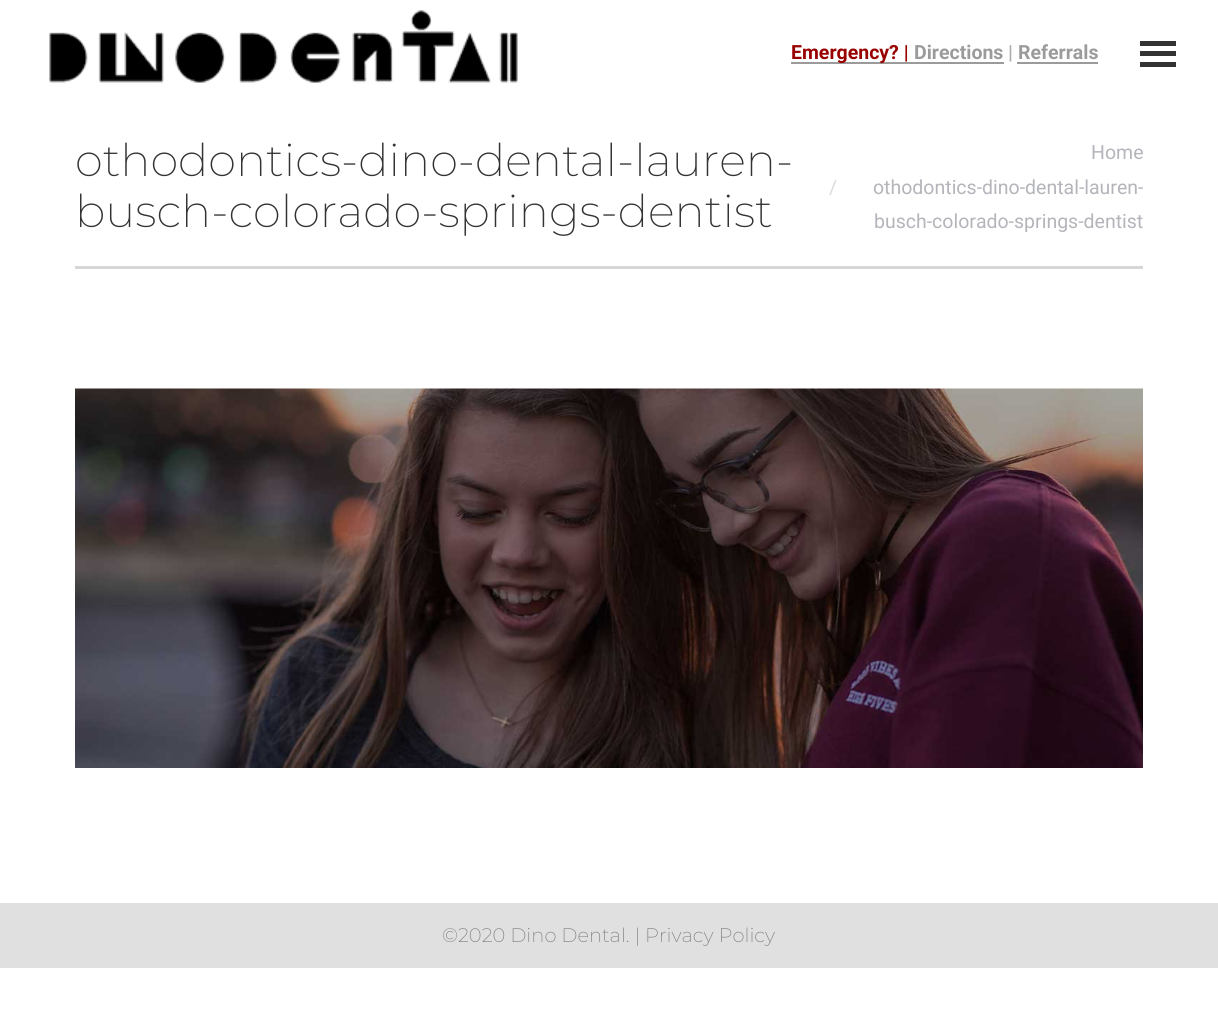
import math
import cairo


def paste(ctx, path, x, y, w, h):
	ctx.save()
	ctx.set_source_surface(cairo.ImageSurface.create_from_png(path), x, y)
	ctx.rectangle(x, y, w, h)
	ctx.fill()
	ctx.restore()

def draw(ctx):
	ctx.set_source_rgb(1, 1, 1)
	ctx.paint()
	paste(ctx, 'media/1.png', 49, 10, 469, 73)
	ctx.set_source_rgb(0.608, 0.608, 0.608)
	ctx.rectangle(791, 62, 213, 2)
	ctx.fill()
	ctx.select_font_face('Roboto', cairo.FONT_SLANT_NORMAL, cairo.FONT_WEIGHT_BOLD)
	ctx.set_font_size(19.5)
	ctx.set_source_rgb(0.6, 0, 0)
	ctx.move_to(791, 59)
	ctx.show_text('Emergency? |')
	ctx.set_source_rgb(0.608, 0.608, 0.608)
	ctx.move_to(914, 59)
	ctx.show_text('Directions')
	ctx.set_source_rgb(0.678, 0.678, 0.678)
	ctx.move_to(1008, 59)
	ctx.show_text('|')
	ctx.set_source_rgb(0.608, 0.608, 0.608)
	ctx.move_to(1018, 59)
	ctx.show_text('Referrals')
	ctx.rectangle(1017, 62, 81, 2)
	ctx.fill()
	ctx.set_source_rgb(0.2, 0.2, 0.2)
	ctx.rectangle(1140, 41, 36, 5)
	ctx.rectangle(1140, 51, 36, 5)
	ctx.rectangle(1140, 62, 36, 5)
	ctx.fill()
	ctx.select_font_face('Montserrat ExtraLight')
	ctx.set_font_size(45)
	ctx.move_to(75, 176)
	ctx.show_text('othodontics-dino-dental-lauren-')
	ctx.move_to(75, 227)
	ctx.show_text('busch-colorado-springs-dentist')
	ctx.select_font_face('Roboto')
	ctx.set_font_size(19.5)
	ctx.set_source_rgb(0.706, 0.71, 0.733)
	ctx.move_to(1091, 159)
	ctx.show_text('Home')
	ctx.set_source_rgb(0.855, 0.855, 0.867)
	ctx.move_to(829, 194)
	ctx.show_text('/')
	ctx.set_source_rgb(0.706, 0.71, 0.733)
	ctx.move_to(873, 194)
	ctx.show_text('othodontics-dino-dental-lauren-')
	ctx.move_to(874, 228)
	ctx.show_text('busch-colorado-springs-dentist')
	ctx.set_source_rgb(0.839, 0.839, 0.839)
	ctx.rectangle(75, 266, 1068, 3)
	ctx.fill()
	paste(ctx, 'media/2.png', 75, 388, 1068, 380)
	ctx.set_source_rgb(0.878, 0.878, 0.878)
	ctx.rectangle(0, 903, 1218, 65)
	ctx.fill()
	ctx.select_font_face('Montserrat ExtraLight')
	ctx.set_source_rgb(0.478, 0.478, 0.478)
	ctx.move_to(442, 942)
	ctx.show_text('©2020 Dino Dental. | Privacy Policy')


surface = cairo.ImageSurface(cairo.FORMAT_RGB24, 1218, 1019)
ctx = cairo.Context(surface)
options = cairo.FontOptions()
options.set_hint_metrics(cairo.HINT_METRICS_OFF)
options.set_hint_style(cairo.HINT_STYLE_NONE)
ctx.set_font_options(options)
ctx.set_miter_limit(4)
draw(ctx)
surface.write_to_png('image.png')
